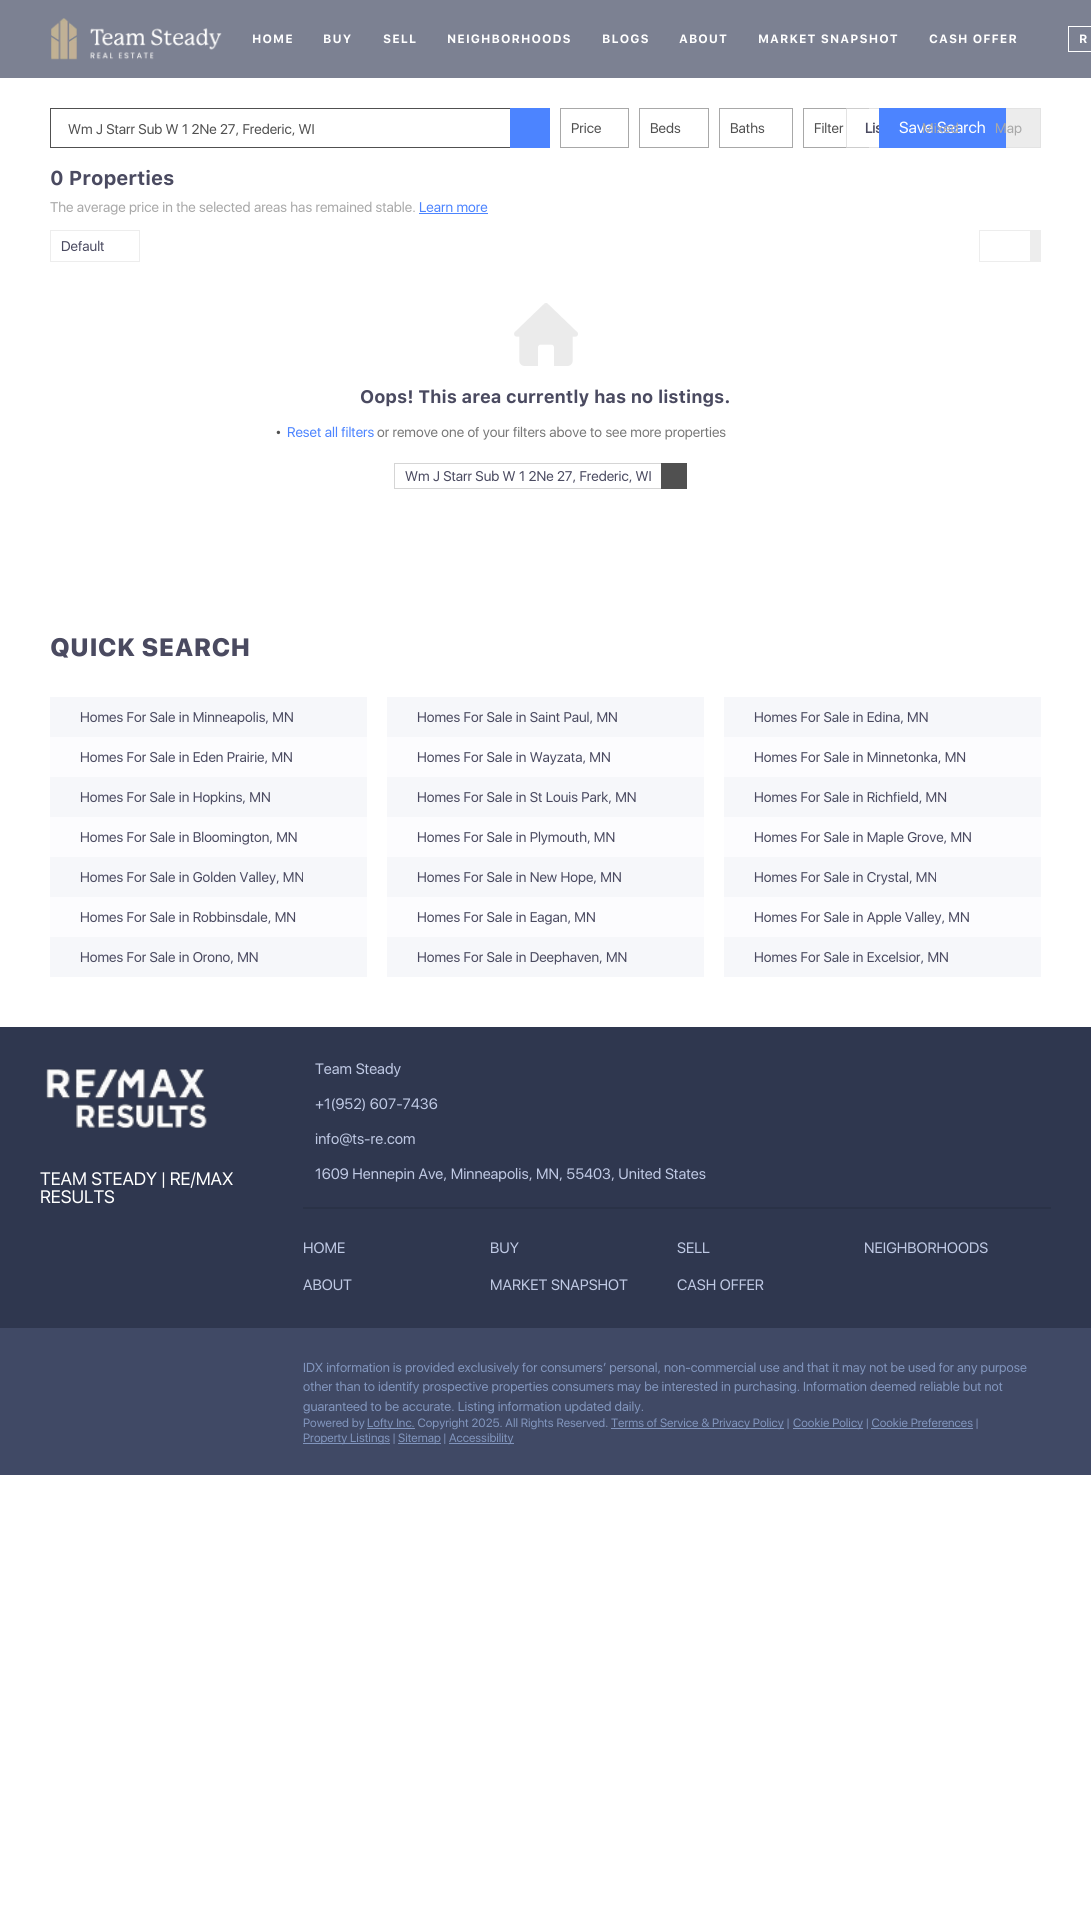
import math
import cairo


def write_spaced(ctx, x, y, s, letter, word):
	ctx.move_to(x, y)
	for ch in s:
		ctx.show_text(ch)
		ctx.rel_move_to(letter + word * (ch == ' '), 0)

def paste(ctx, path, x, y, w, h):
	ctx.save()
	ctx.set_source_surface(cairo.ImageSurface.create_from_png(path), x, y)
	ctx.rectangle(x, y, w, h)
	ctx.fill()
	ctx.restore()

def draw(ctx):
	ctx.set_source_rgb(1, 1, 1)
	ctx.paint()
	ctx.set_source_rgb(0.486, 0.506, 0.573)
	ctx.rectangle(0, 0, 1091, 78)
	ctx.fill()
	paste(ctx, 'media/1.png', 51, 18, 171, 42)
	ctx.select_font_face('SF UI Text', cairo.FONT_SLANT_NORMAL, cairo.FONT_WEIGHT_BOLD)
	ctx.set_font_size(12)
	ctx.set_source_rgb(1, 1, 1)
	for x, y, s in [
		(252, 43, 'HOME'),
		(323, 43, 'BUY'),
		(383, 43, 'SELL'),
		(447, 43, 'NEIGHBORHOODS'),
		(602, 43, 'BLOGS'),
		(679, 43, 'ABOUT'),
		(758, 43, 'MARKET SNAPSHOT'),
		(929, 43, 'CASH OFFER'),
	]:
		write_spaced(ctx, x, y, s, 1.1, 0)
	ctx.rectangle(1068.5, 26.5, 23, 25)
	ctx.set_line_width(1)
	ctx.stroke()
	write_spaced(ctx, 1079, 43, 'R', 1.1, 0)
	ctx.rectangle(560.5, 108.5, 68, 39)
	ctx.set_source_rgb(0.659, 0.659, 0.659)
	ctx.stroke()
	ctx.select_font_face('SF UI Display')
	ctx.set_font_size(14)
	ctx.set_source_rgb(0.314, 0.314, 0.314)
	ctx.move_to(571, 133)
	ctx.show_text('Price')
	ctx.rectangle(639.5, 108.5, 69, 39)
	ctx.set_source_rgb(0.659, 0.659, 0.659)
	ctx.stroke()
	ctx.set_source_rgb(0.314, 0.314, 0.314)
	ctx.move_to(650, 133)
	ctx.show_text('Beds')
	ctx.rectangle(719.5, 108.5, 73, 39)
	ctx.set_source_rgb(0.659, 0.659, 0.659)
	ctx.stroke()
	ctx.set_source_rgb(0.314, 0.314, 0.314)
	ctx.move_to(730, 133)
	ctx.show_text('Baths')
	ctx.rectangle(803.5, 108.5, 65, 39)
	ctx.set_source_rgb(0.659, 0.659, 0.659)
	ctx.stroke()
	ctx.set_source_rgb(0.314, 0.314, 0.314)
	ctx.move_to(814, 133)
	ctx.show_text('Filter')
	ctx.set_source_rgba(0.855, 0.855, 0.855, 0.5)
	ctx.rectangle(846, 108, 195, 40)
	ctx.fill()
	ctx.rectangle(846.5, 108.5, 194, 39)
	ctx.stroke()
	ctx.set_source_rgb(1, 1, 1)
	ctx.rectangle(847, 109, 32, 38)
	ctx.fill()
	ctx.select_font_face('SF UI Display', cairo.FONT_SLANT_NORMAL, cairo.FONT_WEIGHT_BOLD)
	ctx.set_source_rgb(0.29, 0.29, 0.376)
	ctx.move_to(865, 133)
	ctx.show_text('Lis')
	ctx.set_source_rgb(0.298, 0.518, 1)
	ctx.rectangle(879, 108, 127, 40)
	ctx.fill()
	ctx.select_font_face('SF UI Display')
	ctx.set_font_size(16)
	ctx.set_source_rgb(1, 1, 1)
	ctx.move_to(899, 133)
	ctx.show_text('Save Search')
	ctx.set_source_rgb(0.314, 0.314, 0.314)
	ctx.rectangle(50, 108, 460, 1)
	ctx.rectangle(50, 147, 460, 1)
	ctx.rectangle(50, 108, 1, 40)
	ctx.fill()
	ctx.set_source_rgb(0.298, 0.518, 1)
	ctx.rectangle(510, 108, 40, 40)
	ctx.fill()
	ctx.set_font_size(14)
	ctx.set_source_rgb(0.314, 0.314, 0.314)
	ctx.move_to(68, 134)
	ctx.show_text('Wm J Starr Sub W 1 2Ne 27, Frederic, WI')
	ctx.set_source_rgb(0.659, 0.659, 0.659)
	ctx.move_to(922, 133)
	ctx.show_text('Mixed')
	ctx.move_to(995, 133)
	ctx.show_text('Map')
	ctx.select_font_face('SF UI Text', cairo.FONT_SLANT_NORMAL, cairo.FONT_WEIGHT_BOLD)
	ctx.set_font_size(20)
	ctx.set_source_rgb(0.29, 0.29, 0.376)
	ctx.move_to(50, 185)
	ctx.show_text('0 Properties')
	ctx.select_font_face('SF UI Display')
	ctx.set_font_size(14)
	ctx.set_source_rgb(0.659, 0.659, 0.659)
	ctx.move_to(50, 212)
	ctx.show_text('The average price in the selected areas has remained stable.')
	ctx.set_source_rgb(0.298, 0.518, 1)
	ctx.move_to(419, 212)
	ctx.show_text('Learn more')
	ctx.rectangle(419, 213, 69, 1)
	ctx.fill()
	ctx.rectangle(50.5, 230.5, 89, 31)
	ctx.set_source_rgb(0.929, 0.929, 0.929)
	ctx.stroke()
	ctx.set_source_rgb(0.29, 0.29, 0.376)
	ctx.move_to(61, 251)
	ctx.show_text('Default')
	ctx.rectangle(979.5, 230.5, 61, 31)
	ctx.set_source_rgb(0.929, 0.929, 0.929)
	ctx.stroke()
	ctx.rectangle(1030, 231, 10, 30)
	ctx.fill()
	paste(ctx, 'media/2.png', 514, 303, 64, 63)
	ctx.select_font_face('SF UI Text', cairo.FONT_SLANT_NORMAL, cairo.FONT_WEIGHT_BOLD)
	ctx.set_font_size(18)
	ctx.set_source_rgb(0.29, 0.29, 0.376)
	ctx.move_to(360, 403)
	ctx.show_text('Oops! This area currently has no listings.')
	ctx.select_font_face('SF UI Display', cairo.FONT_SLANT_NORMAL, cairo.FONT_WEIGHT_BOLD)
	ctx.set_font_size(24)
	ctx.set_source_rgb(0.314, 0.314, 0.314)
	ctx.move_to(275, 434)
	ctx.show_text('.')
	ctx.select_font_face('SF UI Display')
	ctx.set_font_size(14)
	ctx.set_source_rgb(0.298, 0.518, 1)
	ctx.move_to(287, 437)
	ctx.show_text('Reset all filters')
	ctx.set_source_rgb(0.471, 0.471, 0.471)
	ctx.move_to(377, 437)
	ctx.show_text('or remove one of your filters above to see more properties')
	ctx.set_source_rgb(0.835, 0.835, 0.835)
	ctx.rectangle(394, 463, 267, 1)
	ctx.rectangle(394, 488, 267, 1)
	ctx.rectangle(394, 463, 1, 26)
	ctx.fill()
	ctx.set_source_rgb(0.29, 0.29, 0.376)
	ctx.move_to(405, 481)
	ctx.show_text('Wm J Starr Sub W 1 2Ne 27, Frederic, WI')
	ctx.set_source_rgb(0.314, 0.314, 0.314)
	ctx.rectangle(661, 463, 26, 26)
	ctx.fill()
	ctx.select_font_face('SF UI Text Black')
	ctx.set_font_size(25)
	ctx.set_source_rgb(0.29, 0.29, 0.376)
	ctx.move_to(50, 656)
	ctx.show_text('QUICK SEARCH')
	ctx.set_source_rgb(0.961, 0.965, 0.98)
	ctx.rectangle(50, 697, 317, 40)
	ctx.fill()
	ctx.select_font_face('SF UI Display')
	ctx.set_font_size(14)
	ctx.set_source_rgb(0.29, 0.29, 0.376)
	ctx.move_to(80, 722)
	ctx.show_text('Homes For Sale in Minneapolis, MN')
	ctx.set_source_rgb(0.961, 0.965, 0.98)
	ctx.rectangle(387, 697, 317, 40)
	ctx.fill()
	ctx.set_source_rgb(0.29, 0.29, 0.376)
	ctx.move_to(417, 722)
	ctx.show_text('Homes For Sale in Saint Paul, MN')
	ctx.set_source_rgb(0.961, 0.965, 0.98)
	ctx.rectangle(724, 697, 317, 40)
	ctx.fill()
	ctx.set_source_rgb(0.29, 0.29, 0.376)
	ctx.move_to(754, 722)
	ctx.show_text('Homes For Sale in Edina, MN')
	ctx.set_source_rgb(0.988, 0.988, 0.996)
	ctx.rectangle(50, 737, 317, 40)
	ctx.fill()
	ctx.set_source_rgb(0.29, 0.29, 0.376)
	ctx.move_to(80, 762)
	ctx.show_text('Homes For Sale in Eden Prairie, MN')
	ctx.set_source_rgb(0.988, 0.988, 0.996)
	ctx.rectangle(387, 737, 317, 40)
	ctx.fill()
	ctx.set_source_rgb(0.29, 0.29, 0.376)
	ctx.move_to(417, 762)
	ctx.show_text('Homes For Sale in Wayzata, MN')
	ctx.set_source_rgb(0.988, 0.988, 0.996)
	ctx.rectangle(724, 737, 317, 40)
	ctx.fill()
	ctx.set_source_rgb(0.29, 0.29, 0.376)
	ctx.move_to(754, 762)
	ctx.show_text('Homes For Sale in Minnetonka, MN')
	ctx.set_source_rgb(0.961, 0.965, 0.98)
	ctx.rectangle(50, 777, 317, 40)
	ctx.fill()
	ctx.set_source_rgb(0.29, 0.29, 0.376)
	ctx.move_to(80, 802)
	ctx.show_text('Homes For Sale in Hopkins, MN')
	ctx.set_source_rgb(0.961, 0.965, 0.98)
	ctx.rectangle(387, 777, 317, 40)
	ctx.fill()
	ctx.set_source_rgb(0.29, 0.29, 0.376)
	ctx.move_to(417, 802)
	ctx.show_text('Homes For Sale in St Louis Park, MN')
	ctx.set_source_rgb(0.961, 0.965, 0.98)
	ctx.rectangle(724, 777, 317, 40)
	ctx.fill()
	ctx.set_source_rgb(0.29, 0.29, 0.376)
	ctx.move_to(754, 802)
	ctx.show_text('Homes For Sale in Richfield, MN')
	ctx.set_source_rgb(0.988, 0.988, 0.996)
	ctx.rectangle(50, 817, 317, 40)
	ctx.fill()
	ctx.set_source_rgb(0.29, 0.29, 0.376)
	ctx.move_to(80, 842)
	ctx.show_text('Homes For Sale in Bloomington, MN')
	ctx.set_source_rgb(0.988, 0.988, 0.996)
	ctx.rectangle(387, 817, 317, 40)
	ctx.fill()
	ctx.set_source_rgb(0.29, 0.29, 0.376)
	ctx.move_to(417, 842)
	ctx.show_text('Homes For Sale in Plymouth, MN')
	ctx.set_source_rgb(0.988, 0.988, 0.996)
	ctx.rectangle(724, 817, 317, 40)
	ctx.fill()
	ctx.set_source_rgb(0.29, 0.29, 0.376)
	ctx.move_to(754, 842)
	ctx.show_text('Homes For Sale in Maple Grove, MN')
	ctx.set_source_rgb(0.961, 0.965, 0.98)
	ctx.rectangle(50, 857, 317, 40)
	ctx.fill()
	ctx.set_source_rgb(0.29, 0.29, 0.376)
	ctx.move_to(80, 882)
	ctx.show_text('Homes For Sale in Golden Valley, MN')
	ctx.set_source_rgb(0.961, 0.965, 0.98)
	ctx.rectangle(387, 857, 317, 40)
	ctx.fill()
	ctx.set_source_rgb(0.29, 0.29, 0.376)
	ctx.move_to(417, 882)
	ctx.show_text('Homes For Sale in New Hope, MN')
	ctx.set_source_rgb(0.961, 0.965, 0.98)
	ctx.rectangle(724, 857, 317, 40)
	ctx.fill()
	ctx.set_source_rgb(0.29, 0.29, 0.376)
	ctx.move_to(754, 882)
	ctx.show_text('Homes For Sale in Crystal, MN')
	ctx.set_source_rgb(0.988, 0.988, 0.996)
	ctx.rectangle(50, 897, 317, 40)
	ctx.fill()
	ctx.set_source_rgb(0.29, 0.29, 0.376)
	ctx.move_to(80, 922)
	ctx.show_text('Homes For Sale in Robbinsdale, MN')
	ctx.set_source_rgb(0.988, 0.988, 0.996)
	ctx.rectangle(387, 897, 317, 40)
	ctx.fill()
	ctx.set_source_rgb(0.29, 0.29, 0.376)
	ctx.move_to(417, 922)
	ctx.show_text('Homes For Sale in Eagan, MN')
	ctx.set_source_rgb(0.988, 0.988, 0.996)
	ctx.rectangle(724, 897, 317, 40)
	ctx.fill()
	ctx.set_source_rgb(0.29, 0.29, 0.376)
	ctx.move_to(754, 922)
	ctx.show_text('Homes For Sale in Apple Valley, MN')
	ctx.set_source_rgb(0.961, 0.965, 0.98)
	ctx.rectangle(50, 937, 317, 40)
	ctx.fill()
	ctx.set_source_rgb(0.29, 0.29, 0.376)
	ctx.move_to(80, 962)
	ctx.show_text('Homes For Sale in Orono, MN')
	ctx.set_source_rgb(0.961, 0.965, 0.98)
	ctx.rectangle(387, 937, 317, 40)
	ctx.fill()
	ctx.set_source_rgb(0.29, 0.29, 0.376)
	ctx.move_to(417, 962)
	ctx.show_text('Homes For Sale in Deephaven, MN')
	ctx.set_source_rgb(0.961, 0.965, 0.98)
	ctx.rectangle(724, 937, 317, 40)
	ctx.fill()
	ctx.set_source_rgb(0.29, 0.29, 0.376)
	ctx.move_to(754, 962)
	ctx.show_text('Homes For Sale in Excelsior, MN')
	ctx.set_source_rgb(0.184, 0.216, 0.31)
	ctx.rectangle(0, 1027, 1091, 301)
	ctx.fill()
	paste(ctx, 'media/3.png', 46, 1068, 161, 61)
	ctx.set_font_size(18)
	ctx.set_source_rgb(1, 1, 1)
	ctx.move_to(40, 1185)
	ctx.show_text('TEAM STEADY | RE/MAX')
	ctx.move_to(40, 1203)
	ctx.show_text('RESULTS')
	ctx.set_font_size(15)
	ctx.set_source_rgb(0.749, 0.788, 0.894)
	for x, y, s in [
		(315, 1074, 'Team Steady'),
		(315, 1109, '+1(952) 607-7436'),
		(315, 1144, 'info@ts-re.com'),
		(315, 1179, '1609 Hennepin Ave, Minneapolis, MN, 55403, United States'),
	]:
		ctx.move_to(x, y)
		ctx.show_text(s)
	ctx.set_source_rgb(0.165, 0.196, 0.278)
	ctx.rectangle(303, 1207, 748, 2)
	ctx.fill()
	ctx.set_source_rgb(0.749, 0.788, 0.894)
	for x, y, s in [
		(303, 1253, 'HOME'),
		(490, 1253, 'BUY'),
		(677, 1253, 'SELL'),
		(864, 1253, 'NEIGHBORHOODS'),
		(303, 1290, 'ABOUT'),
		(490, 1290, 'MARKET SNAPSHOT'),
		(677, 1290, 'CASH OFFER'),
	]:
		ctx.move_to(x, y)
		ctx.show_text(s)
	ctx.set_source_rgb(0.251, 0.286, 0.396)
	ctx.rectangle(0, 1328, 1091, 147)
	ctx.fill()
	ctx.set_font_size(13)
	ctx.set_source_rgb(0.506, 0.584, 0.741)
	for x, y, s in [
		(303, 1372, 'IDX information is provided exclusively for consumers’ personal, non-commercial use and that it may not be used for any purpose'),
		(303, 1391, 'other than to identify prospective properties consumers may be interested in purchasing. Information deemed reliable but not'),
		(303, 1411, 'guaranteed to be accurate. Listing information updated daily.'),
	]:
		ctx.move_to(x, y)
		ctx.show_text(s)
	ctx.set_font_size(12)
	ctx.move_to(303, 1427)
	ctx.show_text('Powered by')
	ctx.rectangle(367, 1428, 48, 1)
	ctx.fill()
	ctx.move_to(367, 1427)
	ctx.show_text('Lofty Inc. Copyright 2025. All Rights Reserved.')
	ctx.rectangle(611, 1428, 173, 1)
	ctx.fill()
	ctx.move_to(611, 1427)
	ctx.show_text('Terms of Service & Privacy Policy |')
	ctx.rectangle(793, 1428, 70, 1)
	ctx.fill()
	ctx.move_to(793, 1427)
	ctx.show_text('Cookie Policy | Cookie Preferences |')
	ctx.rectangle(871, 1428, 102, 1)
	ctx.fill()
	ctx.rectangle(303, 1443, 87, 1)
	ctx.fill()
	ctx.move_to(303, 1442)
	ctx.show_text('Property Listings |')
	ctx.rectangle(398, 1443, 43, 1)
	ctx.fill()
	ctx.move_to(398, 1442)
	ctx.show_text('Sitemap |')
	ctx.rectangle(449, 1443, 65, 1)
	ctx.fill()
	ctx.move_to(449, 1442)
	ctx.show_text('Accessibility')


surface = cairo.ImageSurface(cairo.FORMAT_RGB24, 1091, 1931)
ctx = cairo.Context(surface)
options = cairo.FontOptions()
options.set_hint_metrics(cairo.HINT_METRICS_OFF)
options.set_hint_style(cairo.HINT_STYLE_NONE)
ctx.set_font_options(options)
ctx.set_miter_limit(4)
draw(ctx)
surface.write_to_png('image.png')
